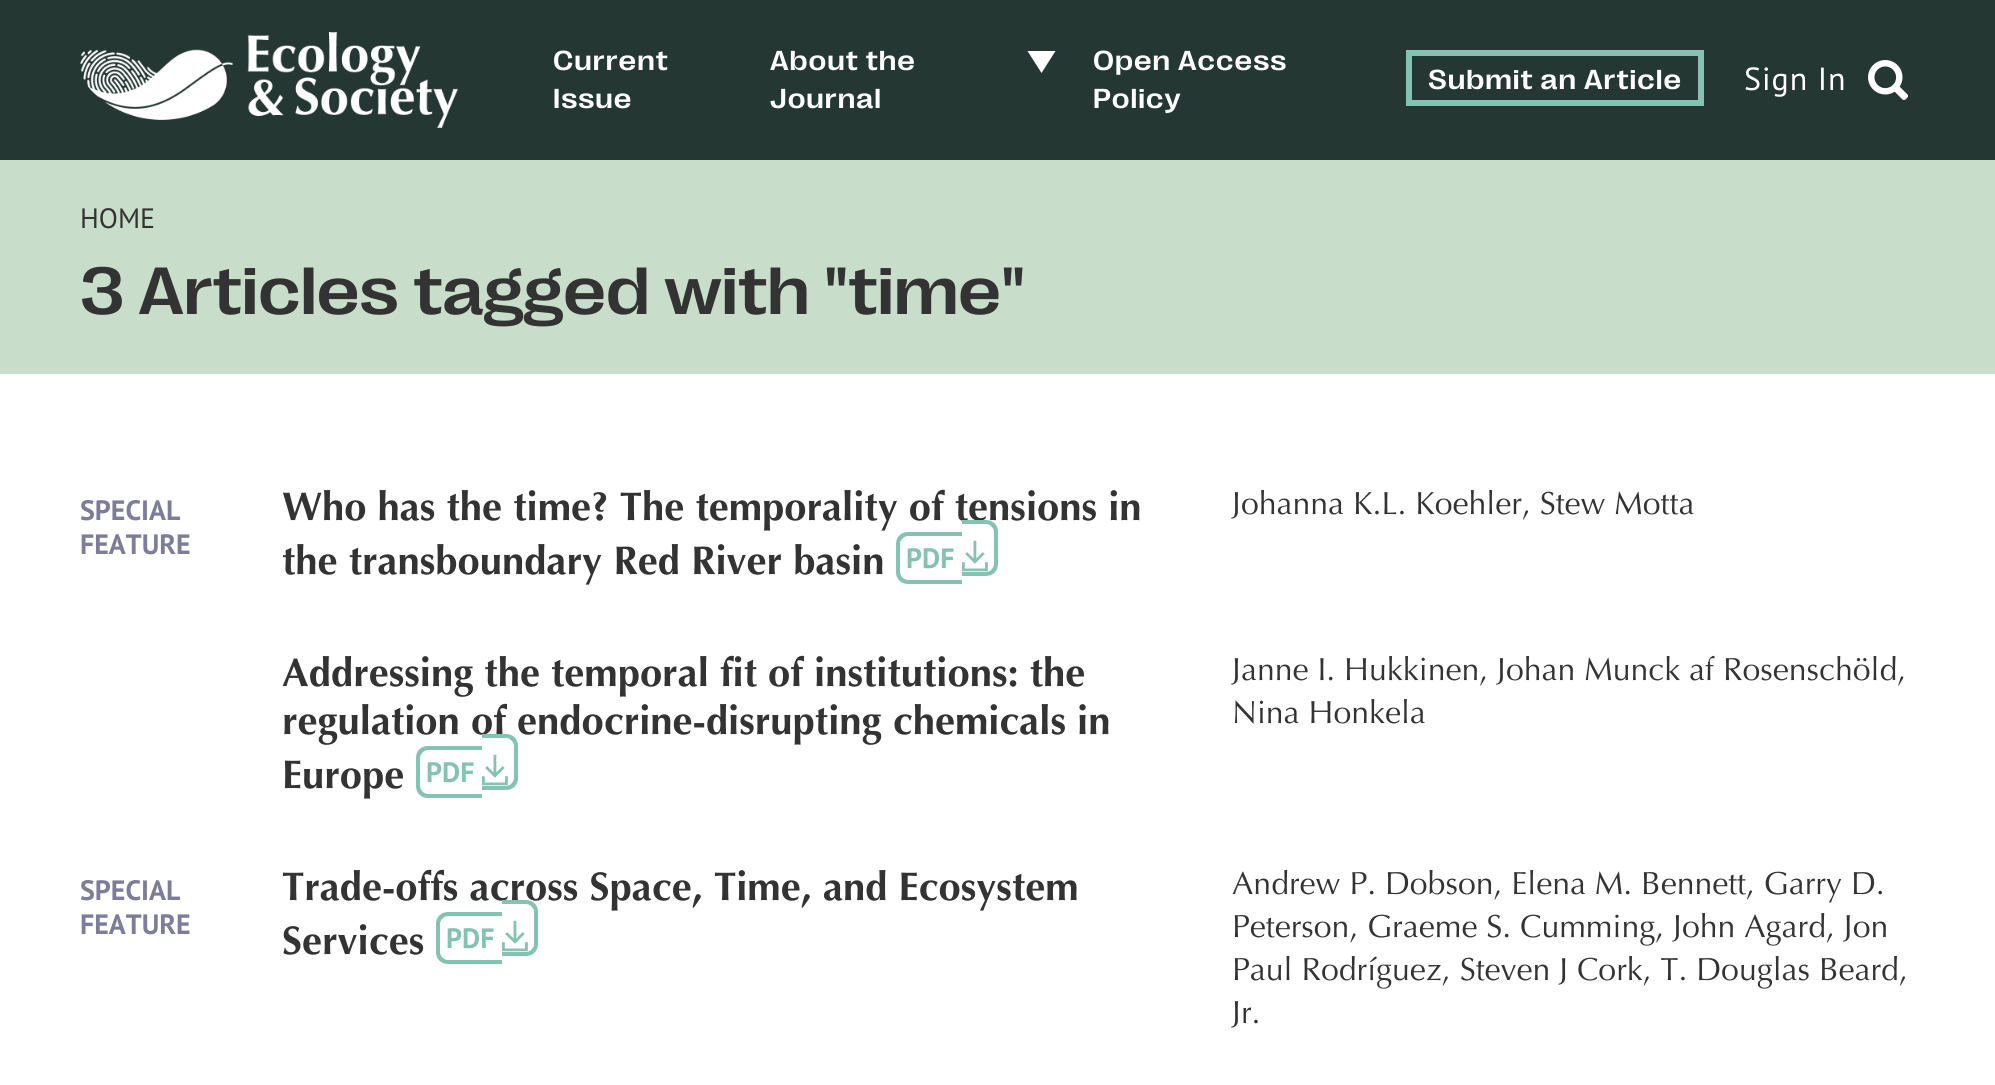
import math
import cairo


def write_spaced(ctx, x, y, s, letter, word):
	ctx.move_to(x, y)
	for ch in s:
		ctx.show_text(ch)
		ctx.rel_move_to(letter + word * (ch == ' '), 0)

def paste(ctx, path, x, y, w, h):
	ctx.save()
	ctx.set_source_surface(cairo.ImageSurface.create_from_png(path), x, y)
	ctx.rectangle(x, y, w, h)
	ctx.fill()
	ctx.restore()

def draw(ctx):
	ctx.set_source_rgb(1, 1, 1)
	ctx.paint()
	ctx.set_source_rgb(0.145, 0.216, 0.2)
	ctx.rectangle(0, 0, 1995, 160)
	ctx.fill()
	paste(ctx, 'media/1.png', 80, 32, 378, 96)
	ctx.select_font_face('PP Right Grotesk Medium')
	ctx.set_font_size(28)
	ctx.set_source_rgb(1, 1, 1)
	for x, y, s in [
		(553, 70, 'Current'),
		(553, 108, 'Issue'),
		(770, 70, 'About the'),
	]:
		write_spaced(ctx, x, y, s, 1, 0)
	ctx.new_path()
	ctx.move_to(1027.5, 51)
	ctx.line_to(1055.5, 51)
	ctx.line_to(1041.5, 73)
	ctx.close_path()
	ctx.fill()
	for x, y, s in [
		(770, 108, 'Journal'),
		(1093, 70, 'Open Access'),
		(1093, 108, 'Policy'),
	]:
		write_spaced(ctx, x, y, s, 1, 0)
	ctx.rectangle(1409, 53, 292, 50)
	ctx.set_source_rgb(0.518, 0.761, 0.698)
	ctx.set_line_width(6)
	ctx.stroke()
	ctx.set_source_rgb(1, 1, 1)
	write_spaced(ctx, 1428, 89, 'Submit an Article', 1, 0)
	ctx.select_font_face('PT Sans')
	ctx.set_font_size(32)
	write_spaced(ctx, 1744, 90, 'Sign In', 1, 0)
	paste(ctx, 'media/2.png', 1868, 60, 40, 40)
	ctx.set_source_rgb(0.788, 0.871, 0.792)
	ctx.rectangle(0, 160, 1995, 214)
	ctx.fill()
	ctx.set_font_size(28)
	ctx.set_source_rgb(0.2, 0.2, 0.2)
	ctx.move_to(80, 228)
	ctx.show_text('HOME')
	ctx.select_font_face('PP Right Grotesk Medium')
	ctx.set_font_size(68)
	ctx.move_to(80, 314)
	ctx.show_text('3 Articles tagged with "time"')
	ctx.select_font_face('PT Sans', cairo.FONT_SLANT_NORMAL, cairo.FONT_WEIGHT_BOLD)
	ctx.set_font_size(28)
	ctx.set_source_rgb(0.49, 0.49, 0.6)
	ctx.move_to(80, 520)
	ctx.show_text('SPECIAL')
	ctx.move_to(80, 554)
	ctx.show_text('FEATURE')
	ctx.select_font_face('Optima', cairo.FONT_SLANT_NORMAL, cairo.FONT_WEIGHT_BOLD)
	ctx.set_font_size(40)
	ctx.set_source_rgb(0.2, 0.2, 0.2)
	ctx.move_to(282, 520)
	ctx.show_text('Who has the time? The temporality of tensions in')
	ctx.move_to(282, 574)
	ctx.show_text('the transboundary Red River basin')
	ctx.set_source_rgb(0.518, 0.761, 0.698)
	ctx.set_fill_rule(cairo.FILL_RULE_EVEN_ODD)
	ctx.new_path()
	ctx.move_to(908, 532)
	ctx.line_to(962, 532)
	ctx.line_to(962, 584)
	ctx.line_to(908, 584)
	ctx.curve_to(901, 584, 896, 579, 896, 572)
	ctx.line_to(896, 544)
	ctx.curve_to(896, 537, 901, 532, 908, 532)
	ctx.close_path()
	ctx.move_to(908, 536)
	ctx.line_to(962, 536)
	ctx.line_to(962, 580)
	ctx.line_to(908, 580)
	ctx.curve_to(904, 580, 900, 576, 900, 572)
	ctx.line_to(900, 544)
	ctx.curve_to(900, 540, 904, 536, 908, 536)
	ctx.close_path()
	ctx.fill()
	ctx.select_font_face('PT Sans', cairo.FONT_SLANT_NORMAL, cairo.FONT_WEIGHT_BOLD)
	ctx.set_font_size(28)
	ctx.move_to(906, 568)
	ctx.show_text('PDF')
	ctx.new_path()
	ctx.move_to(962, 520)
	ctx.line_to(986, 520)
	ctx.curve_to(993, 520, 998, 525, 998, 532)
	ctx.line_to(998, 564)
	ctx.curve_to(998, 571, 993, 576, 986, 576)
	ctx.line_to(962, 576)
	ctx.close_path()
	ctx.move_to(962, 524)
	ctx.line_to(986, 524)
	ctx.curve_to(990, 524, 994, 528, 994, 532)
	ctx.line_to(994, 564)
	ctx.curve_to(994, 568, 990, 572, 986, 572)
	ctx.line_to(962, 572)
	ctx.close_path()
	ctx.fill()
	paste(ctx, 'media/3.png', 962, 540, 26, 32)
	ctx.select_font_face('Optima')
	ctx.set_font_size(32)
	ctx.set_source_rgb(0.2, 0.2, 0.2)
	ctx.move_to(1232, 514)
	ctx.show_text('Johanna K.L. Koehler, Stew Motta')
	ctx.select_font_face('Optima', cairo.FONT_SLANT_NORMAL, cairo.FONT_WEIGHT_BOLD)
	ctx.set_font_size(40)
	for x, y, s in [
		(282, 686, 'Addressing the temporal fit of institutions: the'),
		(282, 734, 'regulation of endocrine-disrupting chemicals in'),
		(282, 788, 'Europe'),
	]:
		ctx.move_to(x, y)
		ctx.show_text(s)
	ctx.set_source_rgb(0.518, 0.761, 0.698)
	ctx.new_path()
	ctx.move_to(428, 746)
	ctx.line_to(482, 746)
	ctx.line_to(482, 798)
	ctx.line_to(428, 798)
	ctx.curve_to(421, 798, 416, 793, 416, 786)
	ctx.line_to(416, 758)
	ctx.curve_to(416, 751, 421, 746, 428, 746)
	ctx.close_path()
	ctx.move_to(428, 750)
	ctx.line_to(482, 750)
	ctx.line_to(482, 794)
	ctx.line_to(428, 794)
	ctx.curve_to(424, 794, 420, 790, 420, 786)
	ctx.line_to(420, 758)
	ctx.curve_to(420, 754, 424, 750, 428, 750)
	ctx.close_path()
	ctx.fill()
	ctx.select_font_face('PT Sans', cairo.FONT_SLANT_NORMAL, cairo.FONT_WEIGHT_BOLD)
	ctx.set_font_size(28)
	ctx.move_to(426, 782)
	ctx.show_text('PDF')
	ctx.new_path()
	ctx.move_to(482, 734)
	ctx.line_to(506, 734)
	ctx.curve_to(513, 734, 518, 739, 518, 746)
	ctx.line_to(518, 778)
	ctx.curve_to(518, 785, 513, 790, 506, 790)
	ctx.line_to(482, 790)
	ctx.close_path()
	ctx.move_to(482, 738)
	ctx.line_to(506, 738)
	ctx.curve_to(510, 738, 514, 742, 514, 746)
	ctx.line_to(514, 778)
	ctx.curve_to(514, 782, 510, 786, 506, 786)
	ctx.line_to(482, 786)
	ctx.close_path()
	ctx.fill()
	paste(ctx, 'media/3.png', 482, 754, 26, 32)
	ctx.select_font_face('Optima')
	ctx.set_font_size(32)
	ctx.set_source_rgb(0.2, 0.2, 0.2)
	ctx.move_to(1232, 680)
	ctx.show_text('Janne I. Hukkinen, Johan Munck af Rosenschöld,')
	ctx.move_to(1232, 723)
	ctx.show_text('Nina Honkela')
	ctx.select_font_face('PT Sans', cairo.FONT_SLANT_NORMAL, cairo.FONT_WEIGHT_BOLD)
	ctx.set_font_size(28)
	ctx.set_source_rgb(0.49, 0.49, 0.6)
	ctx.move_to(80, 900)
	ctx.show_text('SPECIAL')
	ctx.move_to(80, 934)
	ctx.show_text('FEATURE')
	ctx.select_font_face('Optima', cairo.FONT_SLANT_NORMAL, cairo.FONT_WEIGHT_BOLD)
	ctx.set_font_size(40)
	ctx.set_source_rgb(0.2, 0.2, 0.2)
	ctx.move_to(282, 900)
	ctx.show_text('Trade-offs across Space, Time, and Ecosystem')
	ctx.move_to(282, 954)
	ctx.show_text('Services')
	ctx.set_source_rgb(0.518, 0.761, 0.698)
	ctx.new_path()
	ctx.move_to(448, 912)
	ctx.line_to(502, 912)
	ctx.line_to(502, 964)
	ctx.line_to(448, 964)
	ctx.curve_to(441, 964, 436, 959, 436, 952)
	ctx.line_to(436, 924)
	ctx.curve_to(436, 917, 441, 912, 448, 912)
	ctx.close_path()
	ctx.move_to(448, 916)
	ctx.line_to(502, 916)
	ctx.line_to(502, 960)
	ctx.line_to(448, 960)
	ctx.curve_to(444, 960, 440, 956, 440, 952)
	ctx.line_to(440, 924)
	ctx.curve_to(440, 920, 444, 916, 448, 916)
	ctx.close_path()
	ctx.fill()
	ctx.select_font_face('PT Sans', cairo.FONT_SLANT_NORMAL, cairo.FONT_WEIGHT_BOLD)
	ctx.set_font_size(28)
	ctx.move_to(446, 948)
	ctx.show_text('PDF')
	ctx.new_path()
	ctx.move_to(502, 900)
	ctx.line_to(526, 900)
	ctx.curve_to(533, 900, 538, 905, 538, 912)
	ctx.line_to(538, 944)
	ctx.curve_to(538, 951, 533, 956, 526, 956)
	ctx.line_to(502, 956)
	ctx.close_path()
	ctx.move_to(502, 904)
	ctx.line_to(526, 904)
	ctx.curve_to(530, 904, 534, 908, 534, 912)
	ctx.line_to(534, 944)
	ctx.curve_to(534, 948, 530, 952, 526, 952)
	ctx.line_to(502, 952)
	ctx.close_path()
	ctx.fill()
	paste(ctx, 'media/3.png', 502, 920, 26, 32)
	ctx.select_font_face('Optima')
	ctx.set_font_size(32)
	ctx.set_source_rgb(0.2, 0.2, 0.2)
	for x, y, s in [
		(1232, 894, 'Andrew P. Dobson, Elena M. Bennett, Garry D.'),
		(1232, 937, 'Peterson, Graeme S. Cumming, John Agard, Jon'),
		(1232, 980, 'Paul Rodríguez, Steven J Cork, T. Douglas Beard,'),
		(1232, 1023, 'Jr.'),
	]:
		ctx.move_to(x, y)
		ctx.show_text(s)


surface = cairo.ImageSurface(cairo.FORMAT_RGB24, 1995, 1085)
ctx = cairo.Context(surface)
options = cairo.FontOptions()
options.set_hint_metrics(cairo.HINT_METRICS_OFF)
options.set_hint_style(cairo.HINT_STYLE_NONE)
ctx.set_font_options(options)
ctx.set_miter_limit(4)
draw(ctx)
surface.write_to_png('image.png')
